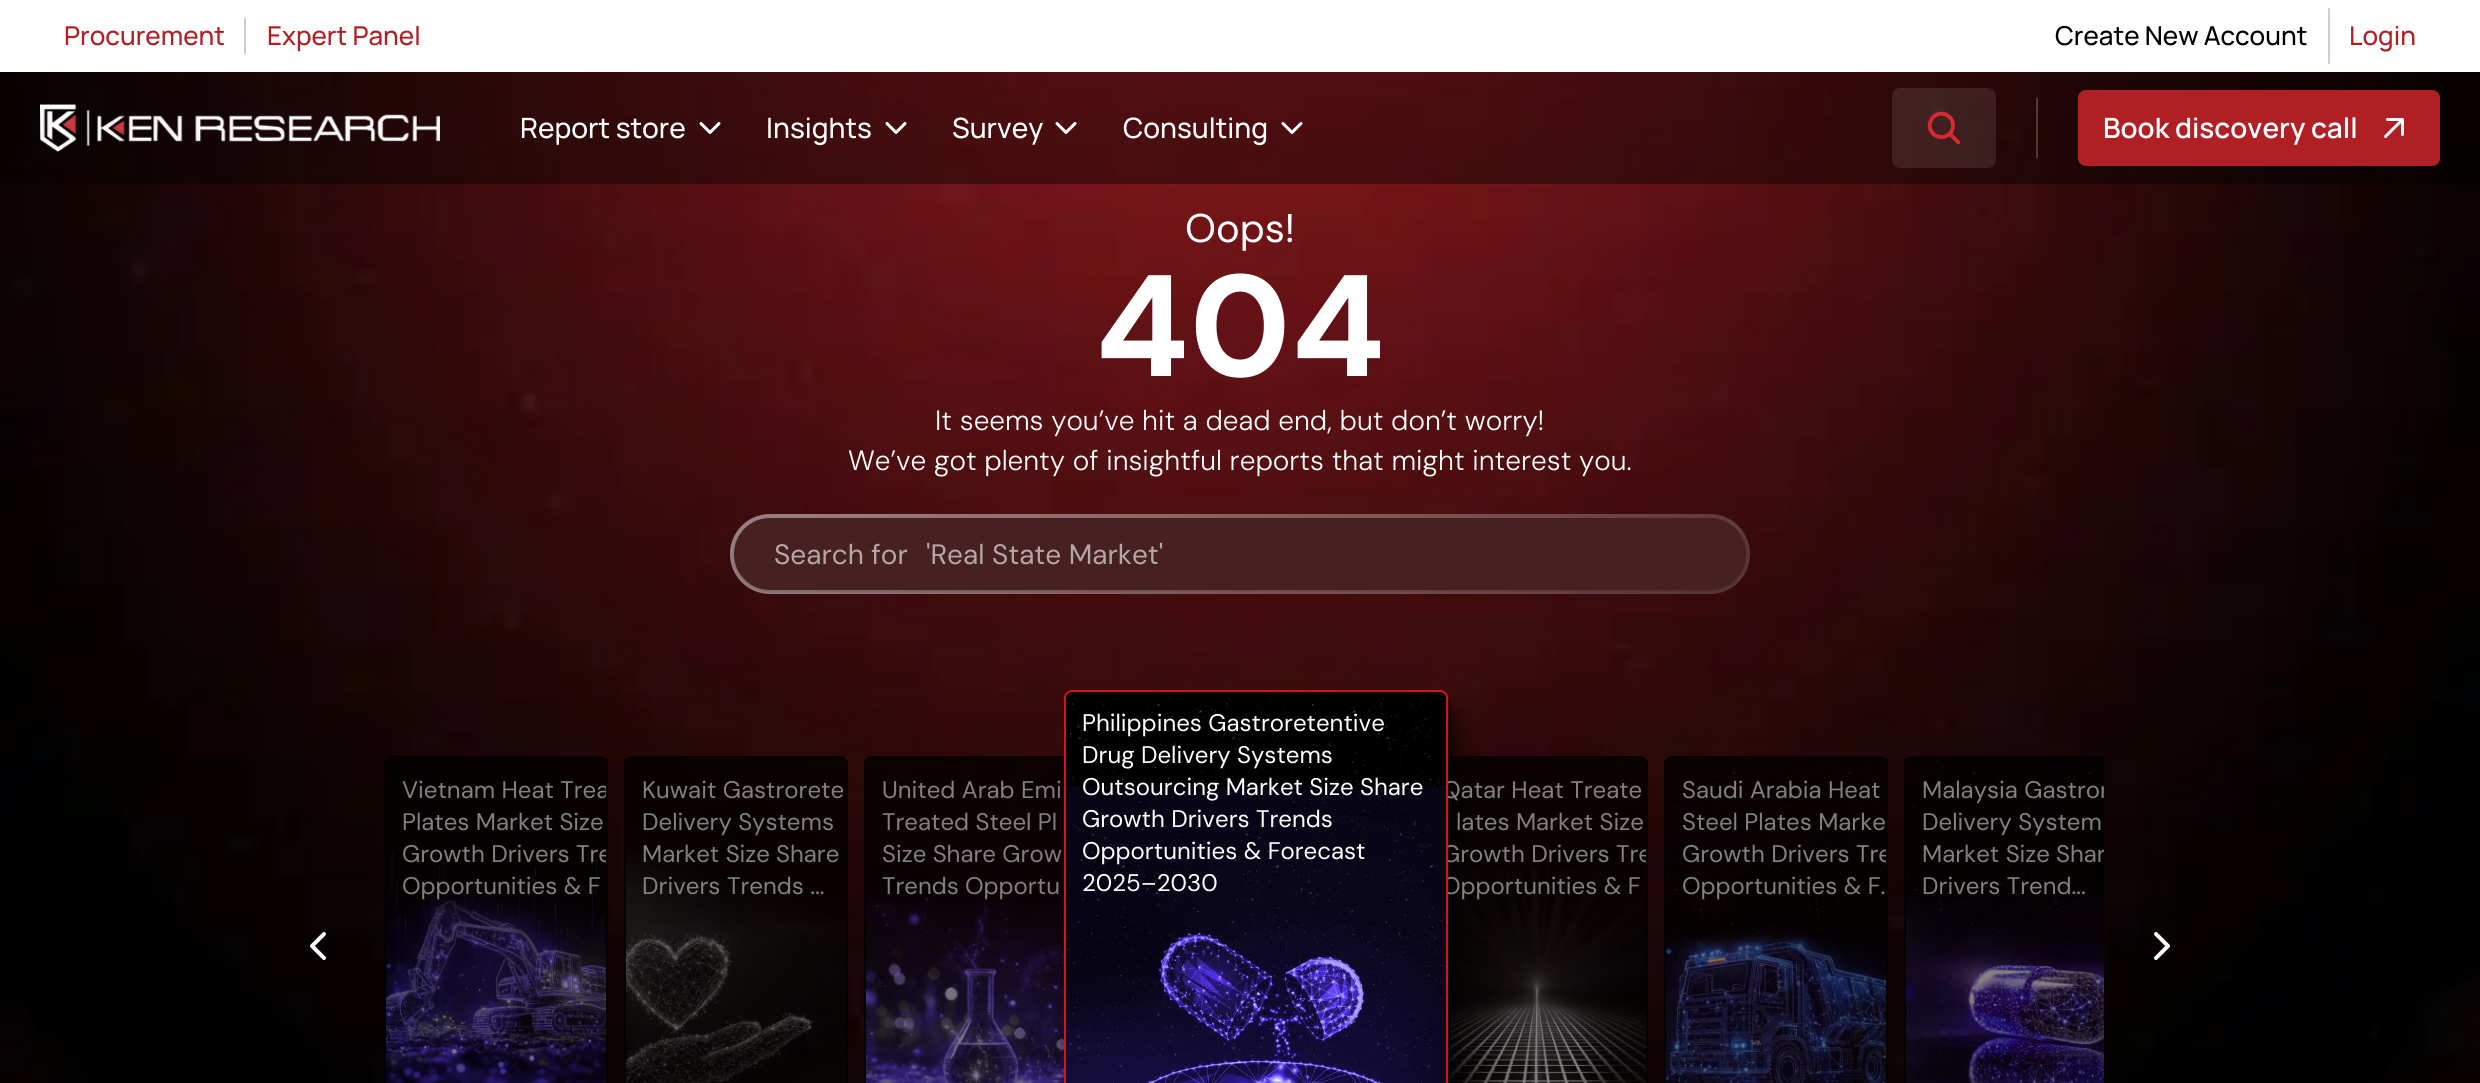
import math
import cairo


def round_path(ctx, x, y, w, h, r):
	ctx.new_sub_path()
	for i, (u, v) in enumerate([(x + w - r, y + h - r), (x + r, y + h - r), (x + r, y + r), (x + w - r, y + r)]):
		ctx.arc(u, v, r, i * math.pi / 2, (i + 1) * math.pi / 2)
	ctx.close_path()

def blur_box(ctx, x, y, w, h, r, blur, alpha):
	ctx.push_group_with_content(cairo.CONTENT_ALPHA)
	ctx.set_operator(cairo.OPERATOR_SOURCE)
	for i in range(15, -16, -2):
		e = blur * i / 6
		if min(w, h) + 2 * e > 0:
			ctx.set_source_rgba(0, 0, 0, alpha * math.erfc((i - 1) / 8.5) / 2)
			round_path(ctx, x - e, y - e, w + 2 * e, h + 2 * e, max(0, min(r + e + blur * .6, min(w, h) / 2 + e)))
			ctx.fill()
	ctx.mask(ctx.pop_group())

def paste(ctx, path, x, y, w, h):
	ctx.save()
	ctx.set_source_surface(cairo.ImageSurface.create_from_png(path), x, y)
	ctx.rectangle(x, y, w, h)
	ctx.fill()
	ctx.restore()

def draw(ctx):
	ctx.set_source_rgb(1, 1, 1)
	ctx.paint()
	ctx.select_font_face('Manrope Medium')
	ctx.set_font_size(26)
	ctx.set_source_rgb(0.69, 0.122, 0.141)
	ctx.move_to(64, 45)
	ctx.show_text('Procurement')
	ctx.set_source_rgb(0.8, 0.8, 0.8)
	round_path(ctx, 244, 18, 2, 36, 1)
	ctx.fill()
	ctx.set_source_rgb(0.69, 0.122, 0.141)
	ctx.move_to(267, 45)
	ctx.show_text('Expert Panel')
	ctx.set_source_rgb(0, 0, 0)
	ctx.move_to(2055, 45)
	ctx.show_text('Create New Account')
	ctx.set_source_rgb(0.8, 0.8, 0.8)
	round_path(ctx, 2328, 8, 2, 56, 1)
	ctx.fill()
	ctx.set_source_rgb(0.69, 0.122, 0.141)
	ctx.move_to(2349, 45)
	ctx.show_text('Login')
	paste(ctx, 'media/4.png', 0, 72, 2480, 1011)
	ctx.set_source_rgba(0, 0, 0, 0.4)
	ctx.rectangle(0, 72, 2480, 112)
	ctx.fill()
	paste(ctx, 'media/1.png', 40, 104, 400, 48)
	ctx.set_font_size(28)
	ctx.set_source_rgb(1, 1, 1)
	ctx.move_to(520, 138)
	ctx.show_text('Report store')
	ctx.new_path()
	ctx.move_to(701, 123.5)
	ctx.line_to(710, 132.5)
	ctx.line_to(719, 123.5)
	ctx.set_line_width(3)
	ctx.set_line_cap(cairo.LINE_CAP_ROUND)
	ctx.set_line_join(cairo.LINE_JOIN_ROUND)
	ctx.stroke()
	ctx.move_to(766, 138)
	ctx.show_text('Insights')
	ctx.new_path()
	ctx.move_to(887, 123.5)
	ctx.line_to(896, 132.5)
	ctx.line_to(905, 123.5)
	ctx.stroke()
	ctx.move_to(952, 138)
	ctx.show_text('Survey')
	ctx.new_path()
	ctx.move_to(1057, 123.5)
	ctx.line_to(1066, 132.5)
	ctx.line_to(1075, 123.5)
	ctx.stroke()
	ctx.move_to(1123, 138)
	ctx.show_text('Consulting')
	ctx.new_path()
	ctx.move_to(1283, 123.5)
	ctx.line_to(1292, 132.5)
	ctx.line_to(1301, 123.5)
	ctx.stroke()
	ctx.set_source_rgba(1, 1, 1, 0.1)
	round_path(ctx, 1892, 88, 104, 80, 8)
	ctx.fill()
	paste(ctx, 'media/2.png', 1927, 111, 34, 34)
	ctx.set_source_rgba(1, 1, 1, 0.2)
	ctx.rectangle(2036, 98, 2, 60)
	ctx.fill()
	ctx.set_source_rgb(0.69, 0.122, 0.141)
	round_path(ctx, 2079, 91, 360, 74, 7)
	ctx.fill_preserve()
	ctx.set_line_width(2)
	ctx.set_line_cap(cairo.LINE_CAP_BUTT)
	ctx.set_line_join(cairo.LINE_JOIN_MITER)
	ctx.stroke()
	ctx.select_font_face('Manrope SemiBold')
	ctx.set_source_rgb(1, 1, 1)
	ctx.move_to(2103, 138)
	ctx.show_text('Book discovery call')
	paste(ctx, 'media/3.png', 2384, 118, 20, 20)
	ctx.select_font_face('DM Sans')
	ctx.set_font_size(40)
	ctx.move_to(1185, 242)
	ctx.show_text('Oops!')
	ctx.select_font_face('DM Sans ExtraBold')
	ctx.set_font_size(144)
	ctx.move_to(1095, 376)
	ctx.show_text('404')
	ctx.select_font_face('DM Sans Light')
	ctx.set_font_size(28)
	ctx.move_to(935, 430)
	ctx.show_text('It seems you’ve hit a dead end, but don’t worry!')
	ctx.move_to(848, 470)
	ctx.show_text('We’ve got plenty of insightful reports that might interest you.')
	ctx.set_source_rgb(0, 0, 0)
	blur_box(ctx, 734, 520, 1012, 72, 36, 2, 0.25)
	ctx.set_source_rgb(0.278, 0.125, 0.133)
	round_path(ctx, 734, 518, 1012, 72, 36)
	ctx.fill()
	ctx.select_font_face('DM Sans')
	ctx.set_source_rgb(0.71, 0.651, 0.655)
	ctx.move_to(774, 564)
	ctx.show_text('Search for')
	ctx.move_to(926, 564)
	ctx.show_text('\'Real State Market\'')
	ctx.set_source_rgba(0, 0, 0, 0.5)
	round_path(ctx, 384, 756, 224, 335, 8)
	ctx.fill()
	round_path(ctx, 385, 757, 222, 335, 7)
	ctx.stroke()
	paste(ctx, 'media/5.png', 386, 758, 220, 325)
	ctx.save()
	round_path(ctx, 386, 758, 220, 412, 6)
	ctx.clip()
	ctx.set_font_size(24)
	ctx.set_source_rgb(0.514, 0.502, 0.502)
	ctx.move_to(402, 798)
	ctx.show_text('Vietnam Heat Trea')
	ctx.restore()
	ctx.set_font_size(24)
	ctx.set_source_rgb(0.514, 0.502, 0.502)
	ctx.move_to(402, 830)
	ctx.show_text('Plates Market Size')
	ctx.move_to(402, 862)
	ctx.show_text('Growth Drivers')
	ctx.save()
	round_path(ctx, 386, 758, 220, 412, 6)
	ctx.clip()
	ctx.set_source_rgb(0.553, 0.51, 0.514)
	ctx.move_to(576, 862)
	ctx.show_text('Tre')
	ctx.restore()
	ctx.move_to(402, 894)
	ctx.show_text('Opportunities & F')
	ctx.set_source_rgba(0, 0, 0, 0.5)
	round_path(ctx, 624, 756, 224, 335, 8)
	ctx.fill()
	round_path(ctx, 625, 757, 222, 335, 7)
	ctx.stroke()
	paste(ctx, 'media/6.png', 626, 758, 220, 325)
	ctx.set_source_rgb(0.514, 0.502, 0.502)
	for x, y, s in [
		(642, 798, 'Kuwait Gastrorete'),
		(642, 830, 'Delivery Systems'),
		(642, 862, 'Market Size'),
		(776, 862, 'Share'),
		(642, 894, 'Drivers'),
		(727, 894, 'Trends ...'),
	]:
		ctx.move_to(x, y)
		ctx.show_text(s)
	ctx.set_source_rgba(0, 0, 0, 0.5)
	round_path(ctx, 864, 756, 224, 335, 8)
	ctx.fill()
	round_path(ctx, 865, 757, 222, 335, 7)
	ctx.stroke()
	paste(ctx, 'media/7.png', 866, 758, 198, 325)
	ctx.set_source_rgb(0.514, 0.502, 0.502)
	for x, y, s in [
		(882, 798, 'United Arab Emi'),
		(882, 830, 'Treated Steel Pl'),
		(882, 862, 'Size Share Grow'),
		(882, 894, 'Trends'),
		(965, 894, 'Opportu'),
	]:
		ctx.move_to(x, y)
		ctx.show_text(s)
	ctx.set_source_rgba(0, 0, 0, 0.5)
	round_path(ctx, 1424, 756, 224, 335, 8)
	ctx.fill()
	round_path(ctx, 1425, 757, 222, 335, 7)
	ctx.stroke()
	paste(ctx, 'media/9.png', 1448, 758, 198, 325)
	ctx.set_source_rgb(0, 0, 0)
	blur_box(ctx, 1114, 774, 372, 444, 1, 44.5, 0.17)
	blur_box(ctx, 1096, 740, 372, 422, 2, 25.5, 0.21)
	blur_box(ctx, 1084, 722, 374, 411, 3, 15.5, 0.23)
	blur_box(ctx, 1078, 710, 376, 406, 4, 9.5, 0.24)
	blur_box(ctx, 1072, 702, 378, 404, 5, 6, 0.25)
	blur_box(ctx, 1070, 698, 380, 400, 6, 3, 0.26)
	blur_box(ctx, 1066, 694, 382, 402, 8, 1.5, 0.26)
	ctx.set_source_rgb(0.514, 0.502, 0.502)
	for x, y, s in [
		(1442, 798, 'Qatar Heat Treate'),
		(1442, 862, 'Growth Drivers'),
		(1442, 894, 'Opportunities & F'),
	]:
		ctx.move_to(x, y)
		ctx.show_text(s)
	round_path(ctx, 1065, 691, 382, 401, 7)
	ctx.set_source_rgb(0.855, 0.078, 0.106)
	ctx.stroke()
	paste(ctx, 'media/8.png', 1066, 692, 380, 391)
	ctx.set_source_rgb(1, 1, 1)
	for x, y, s in [
		(1082, 731, 'Philippines Gastroretentive'),
		(1082, 763, 'Drug Delivery Systems'),
		(1082, 795, 'Outsourcing Market Size Share'),
		(1082, 827, 'Growth Drivers Trends'),
		(1082, 859, 'Opportunities & Forecast'),
		(1082, 891, '2025–2030'),
	]:
		ctx.move_to(x, y)
		ctx.show_text(s)
	ctx.set_source_rgb(0.514, 0.502, 0.502)
	ctx.move_to(1456, 830)
	ctx.show_text('lates Market Size')
	ctx.save()
	round_path(ctx, 1426, 758, 220, 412, 6)
	ctx.clip()
	ctx.move_to(1616, 862)
	ctx.show_text('Tre')
	ctx.restore()
	ctx.set_source_rgba(0, 0, 0, 0.5)
	round_path(ctx, 1664, 756, 224, 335, 8)
	ctx.fill()
	round_path(ctx, 1665, 757, 222, 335, 7)
	ctx.stroke()
	paste(ctx, 'media/10.png', 1666, 758, 220, 325)
	ctx.set_source_rgb(0.514, 0.502, 0.502)
	for x, y, s in [
		(1682, 798, 'Saudi Arabia Heat'),
		(1682, 830, 'Steel Plates Marke'),
		(1682, 862, 'Growth Drivers'),
	]:
		ctx.move_to(x, y)
		ctx.show_text(s)
	ctx.save()
	round_path(ctx, 1666, 758, 220, 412, 6)
	ctx.clip()
	ctx.set_source_rgb(0.553, 0.51, 0.514)
	ctx.move_to(1856, 862)
	ctx.show_text('Tre')
	ctx.restore()
	ctx.move_to(1682, 894)
	ctx.show_text('Opportunities & F.')
	ctx.set_source_rgba(0, 0, 0, 0.5)
	ctx.new_path()
	ctx.move_to(1912, 756)
	ctx.line_to(2104, 756)
	ctx.line_to(2104, 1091)
	ctx.line_to(1912, 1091)
	ctx.curve_to(1907.5, 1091, 1904, 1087.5, 1904, 1083)
	ctx.line_to(1904, 764)
	ctx.curve_to(1904, 759.5, 1907.5, 756, 1912, 756)
	ctx.close_path()
	ctx.fill()
	ctx.save()
	ctx.rectangle(376, 676, 1728, 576)
	ctx.clip()
	round_path(ctx, 1905, 757, 222, 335, 7)
	ctx.stroke()
	ctx.restore()
	paste(ctx, 'media/11.png', 1906, 758, 198, 325)
	ctx.save()
	ctx.rectangle(376, 676, 1728, 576)
	ctx.clip()
	ctx.set_source_rgb(0.514, 0.502, 0.502)
	ctx.move_to(1922, 798)
	ctx.show_text('Malaysia Gastror')
	ctx.restore()
	ctx.set_source_rgb(0.514, 0.502, 0.502)
	ctx.move_to(1922, 830)
	ctx.show_text('Delivery System')
	ctx.move_to(1922, 862)
	ctx.show_text('Market Size')
	ctx.save()
	ctx.rectangle(376, 676, 1728, 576)
	ctx.clip()
	ctx.move_to(2056, 862)
	ctx.show_text('Shar')
	ctx.restore()
	ctx.move_to(1922, 894)
	ctx.show_text('Drivers Trend...')
	paste(ctx, 'media/12.png', 310, 932, 16, 28)
	paste(ctx, 'media/13.png', 2154, 932, 16, 28)


surface = cairo.ImageSurface(cairo.FORMAT_RGB24, 2480, 1083)
ctx = cairo.Context(surface)
options = cairo.FontOptions()
options.set_hint_metrics(cairo.HINT_METRICS_OFF)
options.set_hint_style(cairo.HINT_STYLE_NONE)
ctx.set_font_options(options)
ctx.set_miter_limit(4)
draw(ctx)
surface.write_to_png('image.png')
